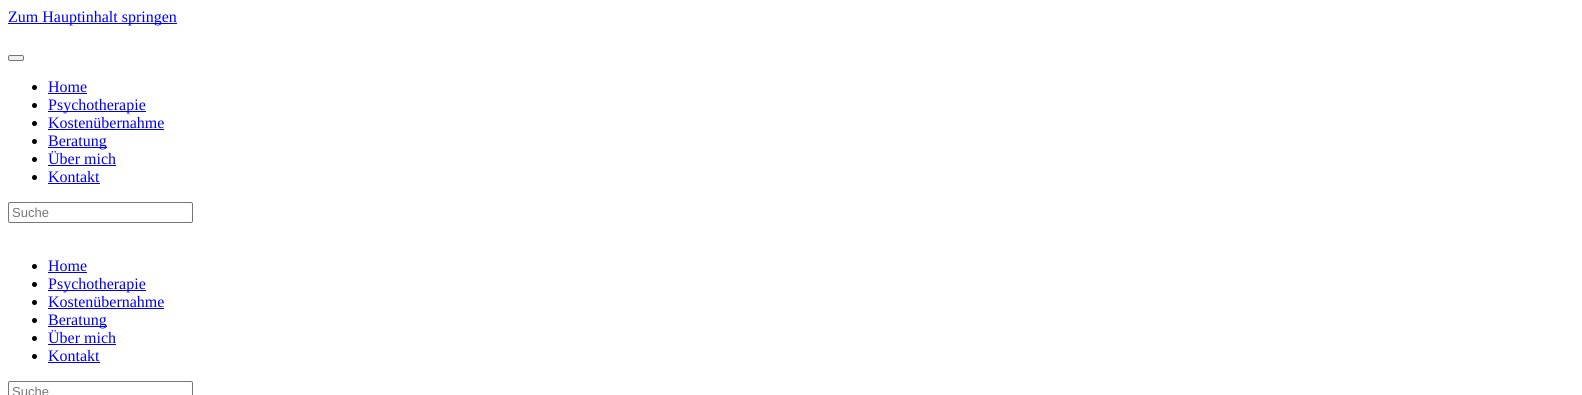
import math
import cairo


def round_path(ctx, x, y, w, h, r):
	ctx.new_sub_path()
	for i, (u, v) in enumerate([(x + w - r, y + h - r), (x + r, y + h - r), (x + r, y + r), (x + w - r, y + r)]):
		ctx.arc(u, v, r, i * math.pi / 2, (i + 1) * math.pi / 2)
	ctx.close_path()

def draw(ctx):
	ctx.set_source_rgb(1, 1, 1)
	ctx.paint()
	ctx.set_source_rgb(0, 0, 0.933)
	ctx.rectangle(8, 23, 169, 1)
	ctx.fill()
	ctx.select_font_face('Liberation Serif')
	ctx.set_font_size(16)
	ctx.move_to(8, 22)
	ctx.show_text('Zum Hauptinhalt springen')
	ctx.set_source_rgb(0.937, 0.937, 0.937)
	round_path(ctx, 8.5, 55.5, 15, 5, 1.5)
	ctx.fill_preserve()
	ctx.set_source_rgb(0.463, 0.463, 0.463)
	ctx.set_line_width(1)
	ctx.stroke()
	ctx.set_source_rgb(0, 0, 0)
	ctx.arc(34.5, 87.5, 2.5, 0, 2 * math.pi)
	ctx.fill()
	ctx.set_source_rgb(0, 0, 0.933)
	ctx.move_to(48, 92)
	ctx.show_text('Home')
	ctx.rectangle(48, 93, 39, 1)
	ctx.fill()
	ctx.set_source_rgb(0, 0, 0)
	ctx.arc(34.5, 105.5, 2.5, 0, 2 * math.pi)
	ctx.fill()
	ctx.set_source_rgb(0, 0, 0.933)
	ctx.rectangle(48, 111, 98, 1)
	ctx.fill()
	ctx.move_to(48, 110)
	ctx.show_text('Psychotherapie')
	ctx.set_source_rgb(0, 0, 0)
	ctx.new_path()
	ctx.arc(34.5, 123.5, 2.5, 0, 2 * math.pi)
	ctx.fill()
	ctx.set_source_rgb(0, 0, 0.933)
	ctx.move_to(48, 128)
	ctx.show_text('Kostenübernahme')
	ctx.rectangle(48, 129, 116, 1)
	ctx.fill()
	ctx.set_source_rgb(0, 0, 0)
	ctx.arc(34.5, 141.5, 2.5, 0, 2 * math.pi)
	ctx.fill()
	ctx.set_source_rgb(0, 0, 0.933)
	ctx.rectangle(48, 147, 59, 1)
	ctx.fill()
	ctx.move_to(48, 146)
	ctx.show_text('Beratung')
	ctx.set_source_rgb(0, 0, 0)
	ctx.new_path()
	ctx.arc(34.5, 159.5, 2.5, 0, 2 * math.pi)
	ctx.fill()
	ctx.set_source_rgb(0, 0, 0.933)
	ctx.move_to(48, 164)
	ctx.show_text('Über mich')
	ctx.rectangle(48, 165, 68, 1)
	ctx.fill()
	ctx.set_source_rgb(0, 0, 0)
	ctx.arc(34.5, 177.5, 2.5, 0, 2 * math.pi)
	ctx.fill()
	ctx.set_source_rgb(0, 0, 0.933)
	ctx.move_to(48, 182)
	ctx.show_text('Kontakt')
	ctx.rectangle(48, 183, 52, 1)
	ctx.fill()
	round_path(ctx, 8.5, 202.5, 184, 20, 1.5)
	ctx.set_source_rgb(0.463, 0.463, 0.463)
	ctx.stroke()
	ctx.select_font_face('Liberation Sans')
	ctx.set_font_size(13)
	ctx.set_source_rgb(0.459, 0.459, 0.459)
	ctx.move_to(12, 217)
	ctx.show_text('Suche')
	ctx.set_source_rgb(0, 0, 0)
	ctx.new_path()
	ctx.arc(34.5, 266.5, 2.5, 0, 2 * math.pi)
	ctx.fill()
	ctx.select_font_face('Liberation Serif')
	ctx.set_font_size(16)
	ctx.set_source_rgb(0, 0, 0.933)
	ctx.move_to(48, 271)
	ctx.show_text('Home')
	ctx.rectangle(48, 272, 39, 1)
	ctx.fill()
	ctx.set_source_rgb(0, 0, 0)
	ctx.arc(34.5, 284.5, 2.5, 0, 2 * math.pi)
	ctx.fill()
	ctx.set_source_rgb(0, 0, 0.933)
	ctx.rectangle(48, 290, 98, 1)
	ctx.fill()
	ctx.move_to(48, 289)
	ctx.show_text('Psychotherapie')
	ctx.set_source_rgb(0, 0, 0)
	ctx.new_path()
	ctx.arc(34.5, 302.5, 2.5, 0, 2 * math.pi)
	ctx.fill()
	ctx.set_source_rgb(0, 0, 0.933)
	ctx.move_to(48, 307)
	ctx.show_text('Kostenübernahme')
	ctx.rectangle(48, 308, 116, 1)
	ctx.fill()
	ctx.set_source_rgb(0, 0, 0)
	ctx.arc(34.5, 320.5, 2.5, 0, 2 * math.pi)
	ctx.fill()
	ctx.set_source_rgb(0, 0, 0.933)
	ctx.rectangle(48, 326, 59, 1)
	ctx.fill()
	ctx.move_to(48, 325)
	ctx.show_text('Beratung')
	ctx.set_source_rgb(0, 0, 0)
	ctx.new_path()
	ctx.arc(34.5, 338.5, 2.5, 0, 2 * math.pi)
	ctx.fill()
	ctx.set_source_rgb(0, 0, 0.933)
	ctx.move_to(48, 343)
	ctx.show_text('Über mich')
	ctx.rectangle(48, 344, 68, 1)
	ctx.fill()
	ctx.set_source_rgb(0, 0, 0)
	ctx.arc(34.5, 356.5, 2.5, 0, 2 * math.pi)
	ctx.fill()
	ctx.set_source_rgb(0, 0, 0.933)
	ctx.move_to(48, 361)
	ctx.show_text('Kontakt')
	ctx.rectangle(48, 362, 52, 1)
	ctx.fill()
	round_path(ctx, 8.5, 381.5, 184, 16, 1.5)
	ctx.set_source_rgb(0.463, 0.463, 0.463)
	ctx.stroke()
	ctx.select_font_face('Liberation Sans')
	ctx.set_font_size(13)
	ctx.set_source_rgb(0.459, 0.459, 0.459)
	ctx.move_to(12, 396)
	ctx.show_text('Suche')


surface = cairo.ImageSurface(cairo.FORMAT_RGB24, 1582, 395)
ctx = cairo.Context(surface)
options = cairo.FontOptions()
options.set_hint_metrics(cairo.HINT_METRICS_OFF)
options.set_hint_style(cairo.HINT_STYLE_NONE)
ctx.set_font_options(options)
ctx.set_miter_limit(4)
draw(ctx)
surface.write_to_png('image.png')
